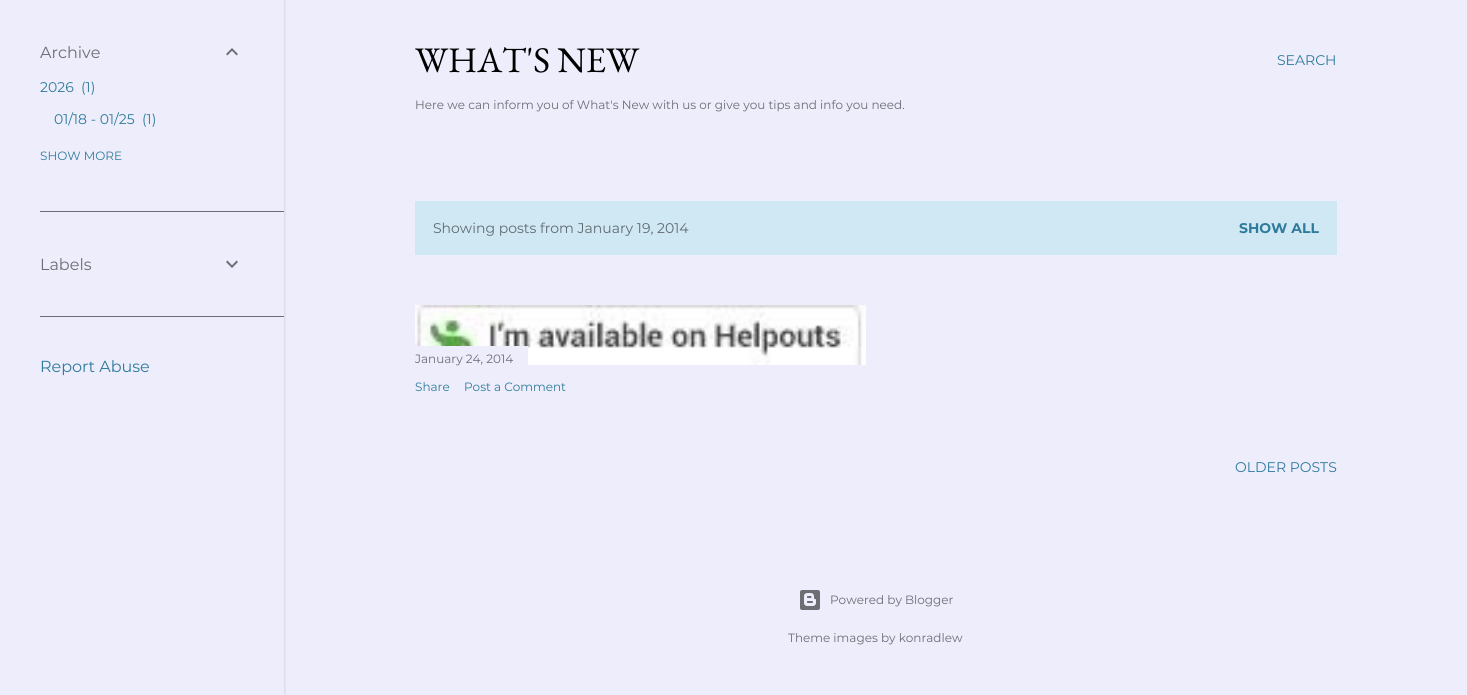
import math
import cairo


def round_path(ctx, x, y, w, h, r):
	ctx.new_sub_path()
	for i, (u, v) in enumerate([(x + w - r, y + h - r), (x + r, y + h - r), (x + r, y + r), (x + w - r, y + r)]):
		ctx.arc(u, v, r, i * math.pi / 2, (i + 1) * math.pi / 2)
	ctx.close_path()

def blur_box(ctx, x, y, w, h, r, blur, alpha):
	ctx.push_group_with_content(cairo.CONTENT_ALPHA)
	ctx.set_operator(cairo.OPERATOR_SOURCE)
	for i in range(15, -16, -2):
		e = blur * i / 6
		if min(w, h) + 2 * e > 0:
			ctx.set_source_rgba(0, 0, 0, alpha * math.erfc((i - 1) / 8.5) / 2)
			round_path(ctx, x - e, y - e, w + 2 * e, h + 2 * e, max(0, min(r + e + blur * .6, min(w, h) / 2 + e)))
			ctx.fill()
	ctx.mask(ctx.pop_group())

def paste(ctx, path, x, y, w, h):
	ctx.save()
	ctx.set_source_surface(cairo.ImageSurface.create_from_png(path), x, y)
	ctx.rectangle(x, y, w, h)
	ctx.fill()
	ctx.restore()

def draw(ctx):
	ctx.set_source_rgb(0.929, 0.929, 0.988)
	ctx.paint()
	ctx.save()
	ctx.rectangle(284, 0, 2, 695)
	ctx.clip()
	ctx.set_source_rgb(0, 0, 0)
	blur_box(ctx, 1, 0, 284, 695, 0, 1.5, 0.1)
	ctx.restore()
	ctx.select_font_face('Montserrat')
	ctx.set_font_size(16)
	ctx.set_source_rgb(0.427, 0.427, 0.455)
	ctx.move_to(40, 58)
	ctx.show_text('Archive')
	paste(ctx, 'media/1.png', 226, 48, 12, 8)
	ctx.set_font_size(14)
	ctx.set_source_rgb(0.184, 0.482, 0.612)
	for x, y, s in [
		(40, 92, '2026'),
		(81, 92, '(1)'),
		(54, 124, '01/18 - 01/25'),
		(142, 124, '(1)'),
	]:
		ctx.move_to(x, y)
		ctx.show_text(s)
	ctx.set_font_size(12)
	ctx.move_to(40, 160)
	ctx.show_text('SHOW MORE')
	ctx.set_source_rgb(0.427, 0.427, 0.455)
	ctx.rectangle(40, 211, 244, 1)
	ctx.fill()
	ctx.set_font_size(16)
	ctx.move_to(40, 270)
	ctx.show_text('Labels')
	paste(ctx, 'media/2.png', 226, 260, 12, 8)
	ctx.rectangle(40, 316, 244, 1)
	ctx.fill()
	ctx.set_source_rgb(0.184, 0.482, 0.612)
	ctx.move_to(40, 372)
	ctx.show_text('Report Abuse')
	ctx.select_font_face('EB Garamond')
	ctx.set_font_size(36)
	ctx.set_source_rgb(0, 0, 0)
	ctx.move_to(415, 72)
	ctx.show_text('WHAT\'S NEW')
	ctx.select_font_face('Montserrat')
	ctx.set_font_size(12)
	ctx.set_source_rgb(0.427, 0.427, 0.455)
	ctx.move_to(415, 109)
	ctx.show_text('Here we can inform you of What\'s New with us or give you tips and info you need.')
	ctx.set_font_size(14)
	ctx.set_source_rgb(0.184, 0.482, 0.612)
	ctx.move_to(1277, 65)
	ctx.show_text('SEARCH')
	ctx.set_source_rgb(0.816, 0.91, 0.953)
	ctx.rectangle(415, 201, 922, 54)
	ctx.fill()
	ctx.set_source_rgb(0.376, 0.42, 0.439)
	ctx.move_to(433, 233)
	ctx.show_text('Showing posts from January 19, 2014')
	ctx.select_font_face('Montserrat', cairo.FONT_SLANT_NORMAL, cairo.FONT_WEIGHT_BOLD)
	ctx.set_source_rgb(0.184, 0.482, 0.612)
	ctx.move_to(1239, 233)
	ctx.show_text('SHOW ALL')
	paste(ctx, 'media/3.png', 415, 305, 451, 60)
	ctx.set_source_rgb(0.929, 0.929, 0.988)
	ctx.rectangle(415, 346, 113, 19)
	ctx.fill()
	ctx.select_font_face('Montserrat')
	ctx.set_font_size(12)
	ctx.set_source_rgb(0.427, 0.427, 0.455)
	ctx.move_to(415, 363)
	ctx.show_text('January 24, 2014')
	ctx.set_source_rgb(0.184, 0.482, 0.612)
	ctx.move_to(415, 391)
	ctx.show_text('Share')
	ctx.move_to(464, 391)
	ctx.show_text('Post a Comment')
	ctx.set_font_size(14)
	ctx.move_to(1235, 472)
	ctx.show_text('OLDER POSTS')
	paste(ctx, 'media/4.png', 800, 590, 20, 20)
	ctx.set_font_size(12)
	ctx.set_source_rgb(0.427, 0.427, 0.455)
	ctx.move_to(830, 604)
	ctx.show_text('Powered by Blogger')
	ctx.move_to(788, 642)
	ctx.show_text('Theme images by konradlew')


surface = cairo.ImageSurface(cairo.FORMAT_RGB24, 1467, 695)
ctx = cairo.Context(surface)
options = cairo.FontOptions()
options.set_hint_metrics(cairo.HINT_METRICS_OFF)
options.set_hint_style(cairo.HINT_STYLE_NONE)
ctx.set_font_options(options)
ctx.set_miter_limit(4)
draw(ctx)
surface.write_to_png('image.png')
